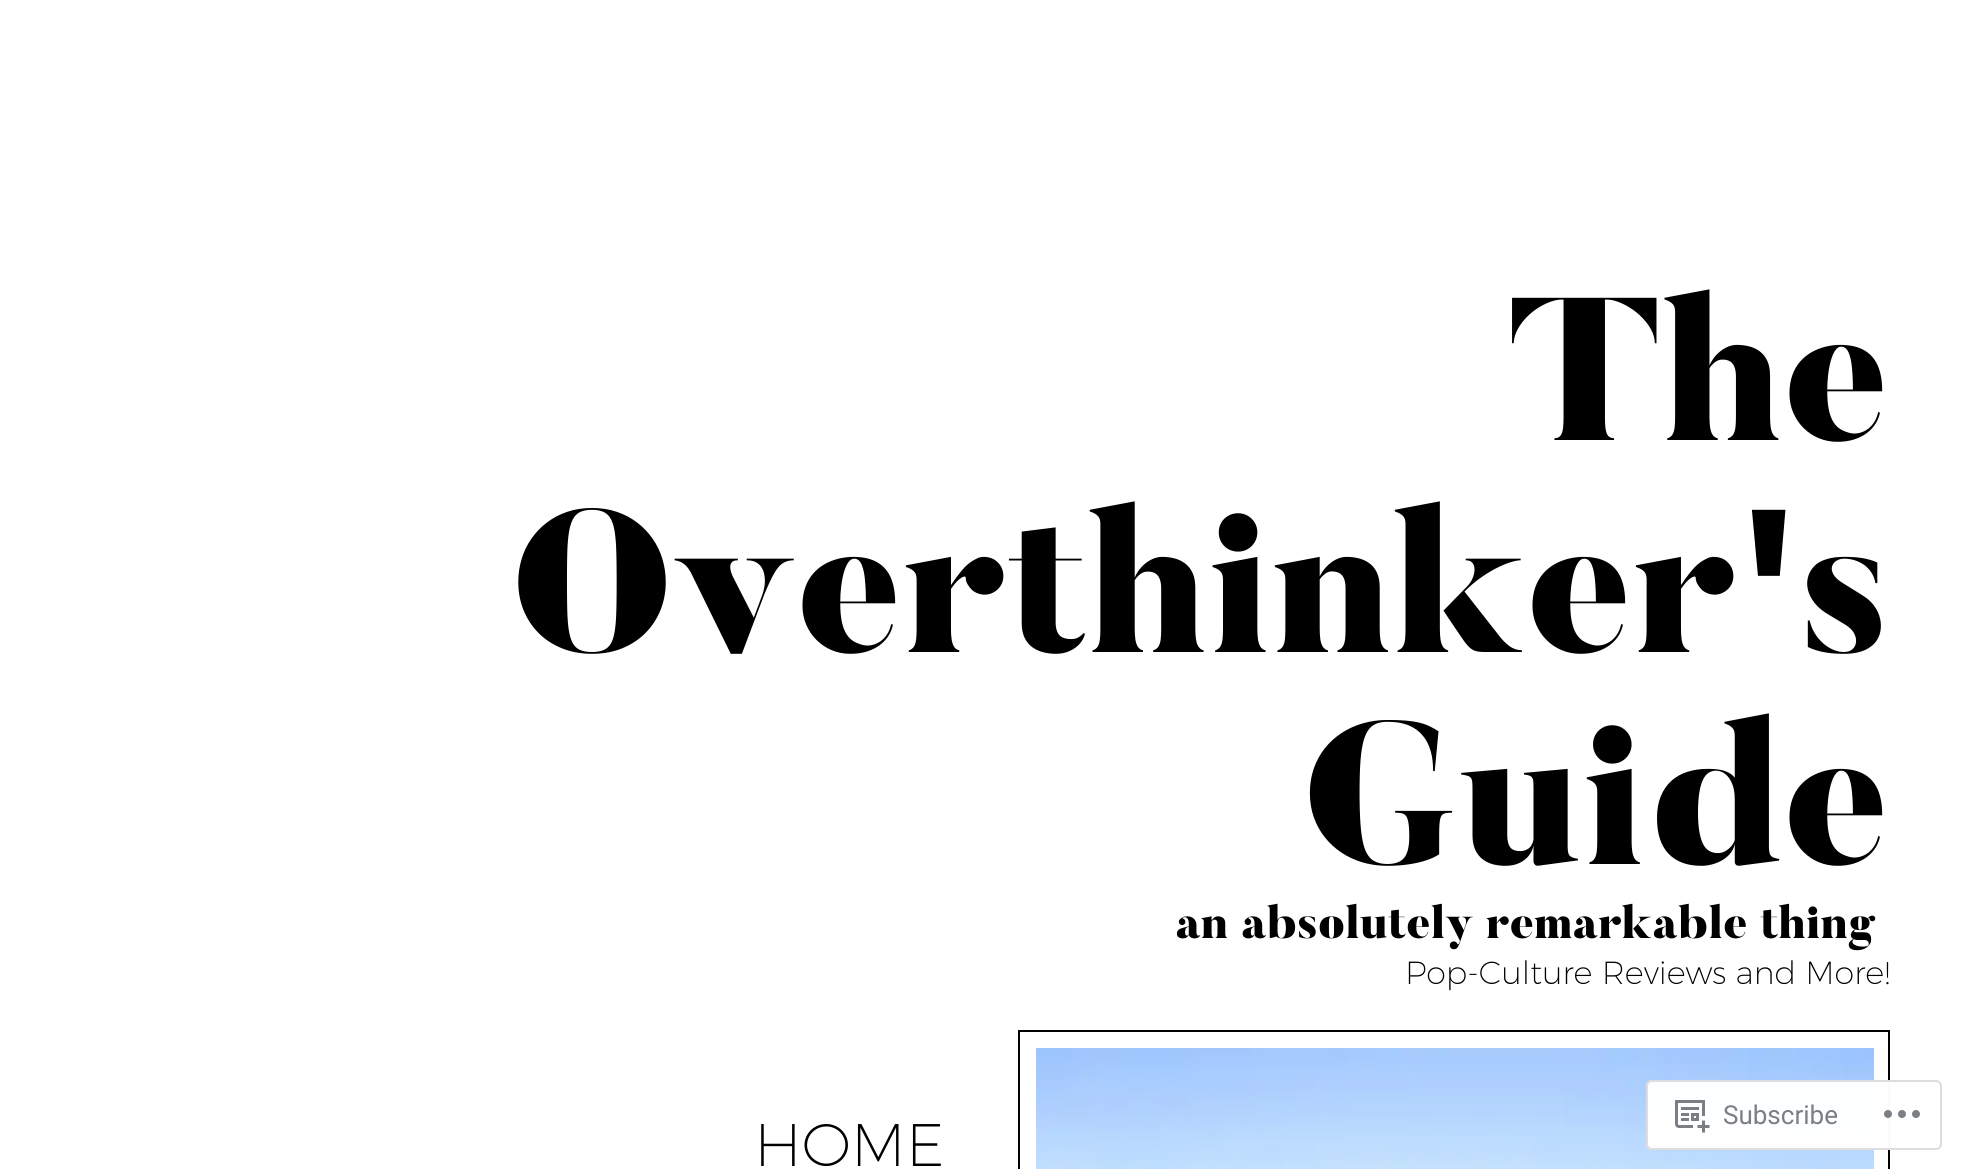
import math
import cairo


def write_spaced(ctx, x, y, s, letter, word):
	ctx.move_to(x, y)
	for ch in s:
		ctx.show_text(ch)
		ctx.rel_move_to(letter + word * (ch == ' '), 0)

def round_path(ctx, x, y, w, h, r):
	ctx.new_sub_path()
	for i, (u, v) in enumerate([(x + w - r, y + h - r), (x + r, y + h - r), (x + r, y + r), (x + w - r, y + r)]):
		ctx.arc(u, v, r, i * math.pi / 2, (i + 1) * math.pi / 2)
	ctx.close_path()

def paste(ctx, path, x, y, w, h):
	ctx.save()
	ctx.set_source_surface(cairo.ImageSurface.create_from_png(path), x, y)
	ctx.rectangle(x, y, w, h)
	ctx.fill()
	ctx.restore()

def draw(ctx):
	ctx.set_source_rgb(1, 1, 1)
	ctx.paint()
	ctx.select_font_face('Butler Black')
	ctx.set_font_size(202)
	ctx.set_source_rgb(0, 0, 0)
	for x, y, s in [
		(1508, 440, 'The'),
		(510, 652, 'Overthinker\'s'),
		(1302, 864, 'Guide'),
	]:
		ctx.move_to(x, y)
		ctx.show_text(s)
	ctx.select_font_face('Montserrat ExtraLight')
	ctx.set_font_size(32)
	ctx.move_to(1405, 984)
	ctx.show_text('Pop-Culture Reviews and More!')
	ctx.set_font_size(60)
	ctx.move_to(754, 1166)
	ctx.show_text('HOME')
	ctx.select_font_face('Butler Black')
	ctx.set_font_size(46)
	write_spaced(ctx, 1175, 938, 'an absolutely remarkable thing', 0, -0.5)
	ctx.rectangle(1019, 1031, 870, 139)
	ctx.stroke()
	paste(ctx, 'media/1.png', 1036, 1048, 838, 121)
	ctx.set_source_rgba(1, 1, 1, 0.98)
	round_path(ctx, 1646, 1080, 296, 70, 6)
	ctx.fill()
	round_path(ctx, 1647, 1081, 294, 68, 5)
	ctx.set_source_rgba(0.863, 0.863, 0.871, 0.98)
	ctx.stroke()
	paste(ctx, 'media/2.png', 1675, 1100, 35, 33)
	ctx.select_font_face('Roboto')
	ctx.set_font_size(26)
	ctx.set_source_rgb(0.482, 0.498, 0.518)
	ctx.move_to(1723, 1124)
	ctx.show_text('Subscribe')
	paste(ctx, 'media/3.png', 1884, 1110, 36, 8)


surface = cairo.ImageSurface(cairo.FORMAT_RGB24, 1962, 1169)
ctx = cairo.Context(surface)
options = cairo.FontOptions()
options.set_hint_metrics(cairo.HINT_METRICS_OFF)
options.set_hint_style(cairo.HINT_STYLE_NONE)
ctx.set_font_options(options)
ctx.set_miter_limit(4)
draw(ctx)
surface.write_to_png('image.png')
